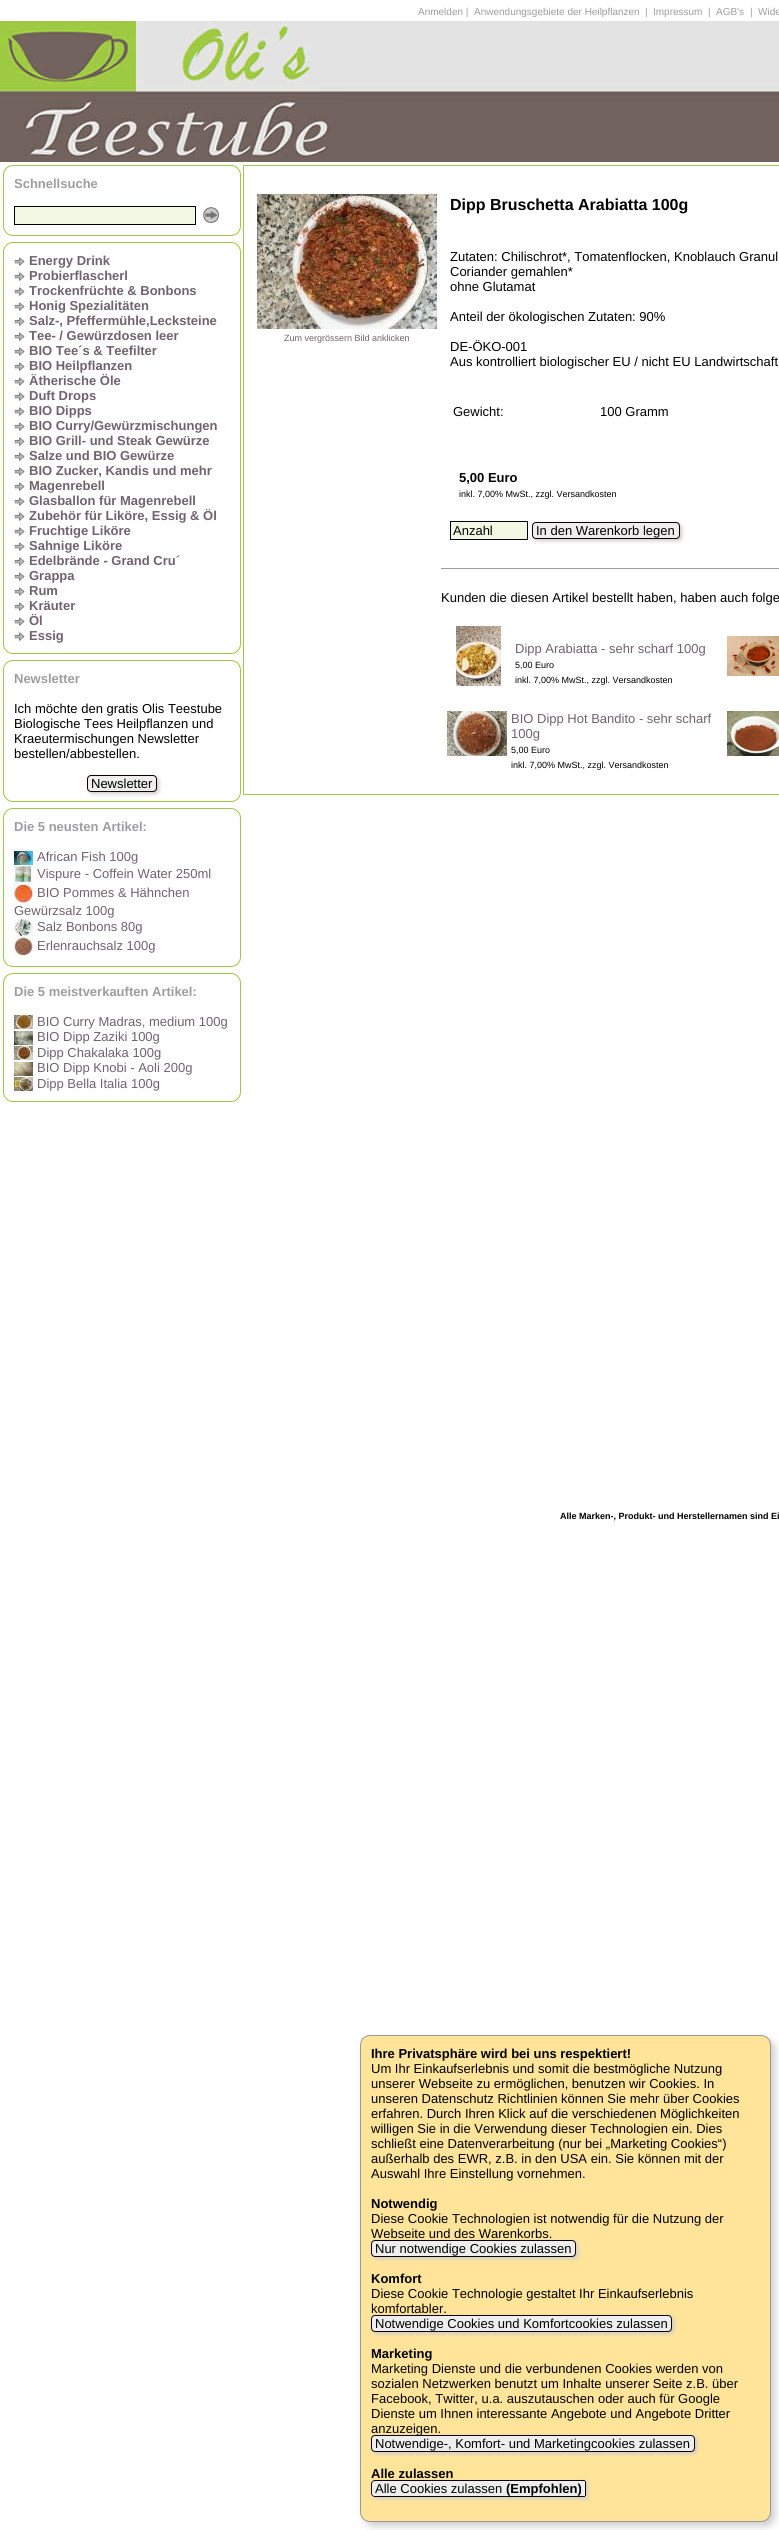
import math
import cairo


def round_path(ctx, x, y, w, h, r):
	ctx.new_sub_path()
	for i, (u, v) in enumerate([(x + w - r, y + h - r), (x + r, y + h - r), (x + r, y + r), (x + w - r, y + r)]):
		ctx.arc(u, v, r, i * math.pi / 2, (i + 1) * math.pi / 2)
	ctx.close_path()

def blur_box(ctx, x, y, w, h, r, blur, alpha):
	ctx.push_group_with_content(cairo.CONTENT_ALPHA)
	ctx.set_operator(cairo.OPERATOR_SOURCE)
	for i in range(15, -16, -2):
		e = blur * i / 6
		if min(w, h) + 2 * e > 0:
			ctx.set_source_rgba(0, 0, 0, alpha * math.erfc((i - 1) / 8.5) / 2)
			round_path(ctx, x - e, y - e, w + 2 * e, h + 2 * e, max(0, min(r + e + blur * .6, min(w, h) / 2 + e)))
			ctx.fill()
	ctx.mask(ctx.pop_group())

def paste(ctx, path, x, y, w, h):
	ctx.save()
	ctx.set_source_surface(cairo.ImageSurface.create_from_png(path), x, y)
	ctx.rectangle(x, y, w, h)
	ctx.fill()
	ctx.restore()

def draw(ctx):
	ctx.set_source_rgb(1, 1, 1)
	ctx.paint()
	ctx.select_font_face('Liberation Sans')
	ctx.set_font_size(10)
	ctx.set_source_rgb(0.616, 0.616, 0.624)
	for x, y, s in [
		(418, 15, 'Anmelden |'),
		(474, 15, 'Anwendungsgebiete der Heilpflanzen'),
		(645, 15, '|'),
		(653, 15, 'Impressum'),
		(708, 15, '|'),
		(716, 15, 'AGB\'s'),
		(750, 15, '|'),
		(758, 15, 'Wide'),
	]:
		ctx.move_to(x, y)
		ctx.show_text(s)
	paste(ctx, 'media/1.png', 0, 21, 779, 141)
	round_path(ctx, 3.5, 165.5, 237, 70, 9.5)
	ctx.set_source_rgb(0.62, 0.788, 0.263)
	ctx.set_line_width(1)
	ctx.stroke()
	ctx.select_font_face('Liberation Sans', cairo.FONT_SLANT_NORMAL, cairo.FONT_WEIGHT_BOLD)
	ctx.set_font_size(13)
	ctx.set_source_rgb(0.616, 0.616, 0.624)
	ctx.move_to(14, 188)
	ctx.show_text('Schnellsuche')
	ctx.set_source_rgb(0.945, 0.969, 0.894)
	ctx.rectangle(14.5, 206.5, 181, 18)
	ctx.fill_preserve()
	ctx.set_source_rgb(0, 0, 0)
	ctx.stroke()
	paste(ctx, 'media/2.png', 203, 207, 16, 16)
	round_path(ctx, 3.5, 242.5, 237, 411, 9.5)
	ctx.set_source_rgb(0.62, 0.788, 0.263)
	ctx.stroke()
	paste(ctx, 'media/3.png', 14, 257, 11, 9)
	ctx.set_source_rgb(0.443, 0.384, 0.427)
	ctx.move_to(29, 265)
	ctx.show_text('Energy Drink')
	paste(ctx, 'media/3.png', 14, 272, 11, 9)
	ctx.move_to(29, 280)
	ctx.show_text('Probierflascherl')
	paste(ctx, 'media/3.png', 14, 287, 11, 9)
	ctx.move_to(29, 295)
	ctx.show_text('Trockenfrüchte & Bonbons')
	paste(ctx, 'media/3.png', 14, 302, 11, 9)
	ctx.move_to(29, 310)
	ctx.show_text('Honig Spezialitäten')
	paste(ctx, 'media/3.png', 14, 317, 11, 9)
	ctx.move_to(29, 325)
	ctx.show_text('Salz-, Pfeffermühle,Lecksteine')
	paste(ctx, 'media/3.png', 14, 332, 11, 9)
	ctx.move_to(29, 340)
	ctx.show_text('Tee- / Gewürzdosen leer')
	paste(ctx, 'media/3.png', 14, 347, 11, 9)
	ctx.move_to(29, 355)
	ctx.show_text('BIO Tee´s & Teefilter')
	paste(ctx, 'media/3.png', 14, 362, 11, 9)
	ctx.move_to(29, 370)
	ctx.show_text('BIO Heilpflanzen')
	paste(ctx, 'media/3.png', 14, 377, 11, 9)
	ctx.move_to(29, 385)
	ctx.show_text('Ätherische Öle')
	paste(ctx, 'media/3.png', 14, 392, 11, 9)
	ctx.move_to(29, 400)
	ctx.show_text('Duft Drops')
	paste(ctx, 'media/3.png', 14, 407, 11, 9)
	ctx.move_to(29, 415)
	ctx.show_text('BIO Dipps')
	paste(ctx, 'media/3.png', 14, 422, 11, 9)
	ctx.move_to(29, 430)
	ctx.show_text('BIO Curry/Gewürzmischungen')
	paste(ctx, 'media/3.png', 14, 437, 11, 9)
	ctx.move_to(29, 445)
	ctx.show_text('BIO Grill- und Steak Gewürze')
	paste(ctx, 'media/3.png', 14, 452, 11, 9)
	ctx.move_to(29, 460)
	ctx.show_text('Salze und BIO Gewürze')
	paste(ctx, 'media/3.png', 14, 467, 11, 9)
	ctx.move_to(29, 475)
	ctx.show_text('BIO Zucker, Kandis und mehr')
	paste(ctx, 'media/3.png', 14, 482, 11, 9)
	ctx.move_to(29, 490)
	ctx.show_text('Magenrebell')
	paste(ctx, 'media/3.png', 14, 497, 11, 9)
	ctx.move_to(29, 505)
	ctx.show_text('Glasballon für Magenrebell')
	paste(ctx, 'media/3.png', 14, 512, 11, 9)
	ctx.move_to(29, 520)
	ctx.show_text('Zubehör für Liköre, Essig & Öl')
	paste(ctx, 'media/3.png', 14, 527, 11, 9)
	ctx.move_to(29, 535)
	ctx.show_text('Fruchtige Liköre')
	paste(ctx, 'media/3.png', 14, 542, 11, 9)
	ctx.move_to(29, 550)
	ctx.show_text('Sahnige Liköre')
	paste(ctx, 'media/3.png', 14, 557, 11, 9)
	ctx.move_to(29, 565)
	ctx.show_text('Edelbrände - Grand Cru´')
	paste(ctx, 'media/3.png', 14, 572, 11, 9)
	ctx.move_to(29, 580)
	ctx.show_text('Grappa')
	paste(ctx, 'media/3.png', 14, 587, 11, 9)
	ctx.move_to(29, 595)
	ctx.show_text('Rum')
	paste(ctx, 'media/3.png', 14, 602, 11, 9)
	ctx.move_to(29, 610)
	ctx.show_text('Kräuter')
	paste(ctx, 'media/3.png', 14, 617, 11, 9)
	ctx.move_to(29, 625)
	ctx.show_text('Öl')
	paste(ctx, 'media/3.png', 14, 632, 11, 9)
	ctx.move_to(29, 640)
	ctx.show_text('Essig')
	round_path(ctx, 3.5, 660.5, 237, 141, 9.5)
	ctx.set_source_rgb(0.62, 0.788, 0.263)
	ctx.stroke()
	ctx.set_source_rgb(0.616, 0.616, 0.624)
	ctx.move_to(14, 683)
	ctx.show_text('Newsletter')
	ctx.select_font_face('Liberation Sans')
	ctx.set_source_rgb(0, 0, 0)
	for x, y, s in [
		(14, 713, 'Ich möchte den gratis Olis Teestube'),
		(14, 728, 'Biologische Tees Heilpflanzen und'),
		(14, 743, 'Kraeutermischungen Newsletter'),
		(14, 758, 'bestellen/abbestellen.'),
	]:
		ctx.move_to(x, y)
		ctx.show_text(s)
	ctx.set_source_rgb(0.8, 0.8, 0.8)
	blur_box(ctx, 89, 777, 70, 17, 4, 2, 1)
	ctx.set_source_rgb(0.933, 0.933, 0.933)
	round_path(ctx, 87.5, 775.5, 69, 16, 3.5)
	ctx.fill_preserve()
	ctx.set_source_rgb(0.067, 0, 0)
	ctx.stroke()
	ctx.set_source_rgb(0, 0, 0)
	ctx.move_to(91, 788)
	ctx.show_text('Newsletter')
	round_path(ctx, 3.5, 808.5, 237, 158, 9.5)
	ctx.set_source_rgb(0.62, 0.788, 0.263)
	ctx.stroke()
	ctx.select_font_face('Liberation Sans', cairo.FONT_SLANT_NORMAL, cairo.FONT_WEIGHT_BOLD)
	ctx.set_source_rgb(0.616, 0.616, 0.624)
	ctx.move_to(14, 831)
	ctx.show_text('Die 5 neusten Artikel:')
	paste(ctx, 'media/4.png', 14, 851, 19, 14)
	ctx.select_font_face('Liberation Sans')
	ctx.set_source_rgb(0.443, 0.384, 0.427)
	ctx.move_to(37, 861)
	ctx.show_text('African Fish 100g')
	paste(ctx, 'media/5.png', 14, 865, 19, 19)
	ctx.move_to(37, 878)
	ctx.show_text('Vispure - Coffein Water 250ml')
	paste(ctx, 'media/6.png', 14, 884, 19, 19)
	ctx.move_to(37, 897)
	ctx.show_text('BIO Pommes & Hähnchen')
	ctx.move_to(14, 915)
	ctx.show_text('Gewürzsalz 100g')
	paste(ctx, 'media/7.png', 14, 918, 19, 19)
	ctx.move_to(37, 931)
	ctx.show_text('Salz Bonbons 80g')
	paste(ctx, 'media/8.png', 14, 937, 19, 19)
	ctx.move_to(37, 950)
	ctx.show_text('Erlenrauchsalz 100g')
	round_path(ctx, 3.5, 973.5, 237, 128, 9.5)
	ctx.set_source_rgb(0.62, 0.788, 0.263)
	ctx.stroke()
	ctx.select_font_face('Liberation Sans', cairo.FONT_SLANT_NORMAL, cairo.FONT_WEIGHT_BOLD)
	ctx.set_source_rgb(0.616, 0.616, 0.624)
	ctx.move_to(14, 996)
	ctx.show_text('Die 5 meistverkauften Artikel:')
	paste(ctx, 'media/9.png', 14, 1015, 19, 14)
	ctx.select_font_face('Liberation Sans')
	ctx.set_source_rgb(0.443, 0.384, 0.427)
	ctx.move_to(37, 1026)
	ctx.show_text('BIO Curry Madras, medium 100g')
	paste(ctx, 'media/10.png', 14, 1031, 19, 14)
	ctx.move_to(37, 1041)
	ctx.show_text('BIO Dipp Zaziki 100g')
	paste(ctx, 'media/11.png', 14, 1046, 19, 14)
	ctx.move_to(37, 1057)
	ctx.show_text('Dipp Chakalaka 100g')
	paste(ctx, 'media/12.png', 14, 1062, 19, 14)
	ctx.move_to(37, 1072)
	ctx.show_text('BIO Dipp Knobi - Aoli 200g')
	paste(ctx, 'media/13.png', 14, 1077, 19, 14)
	ctx.move_to(37, 1088)
	ctx.show_text('Dipp Bella Italia 100g')
	ctx.rectangle(243.5, 165.5, 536, 629)
	ctx.set_source_rgb(0.62, 0.788, 0.263)
	ctx.stroke()
	paste(ctx, 'media/14.png', 257, 194, 180, 135)
	ctx.set_font_size(9)
	ctx.set_source_rgb(0.443, 0.384, 0.427)
	ctx.move_to(284, 341)
	ctx.show_text('Zum vergrössern Bild anklicken')
	ctx.select_font_face('Liberation Sans', cairo.FONT_SLANT_NORMAL, cairo.FONT_WEIGHT_BOLD)
	ctx.set_font_size(16)
	ctx.set_source_rgb(0, 0, 0)
	ctx.move_to(450, 210)
	ctx.show_text('Dipp Bruschetta Arabiatta 100g')
	ctx.select_font_face('Liberation Sans')
	ctx.set_font_size(13)
	for x, y, s in [
		(450, 261, 'Zutaten: Chilischrot*, Tomatenflocken, Knoblauch Granul'),
		(450, 276, 'Coriander gemahlen*'),
		(450, 291, 'ohne Glutamat'),
		(450, 321, 'Anteil der ökologischen Zutaten: 90%'),
		(450, 351, 'DE-ÖKO-001'),
		(450, 366, 'Aus kontrolliert biologischer EU / nicht EU Landwirtschaft'),
		(453, 416, 'Gewicht:'),
		(600, 416, '100 Gramm'),
	]:
		ctx.move_to(x, y)
		ctx.show_text(s)
	ctx.select_font_face('Liberation Sans', cairo.FONT_SLANT_NORMAL, cairo.FONT_WEIGHT_BOLD)
	ctx.move_to(459, 482)
	ctx.show_text('5,00 Euro')
	ctx.select_font_face('Liberation Sans')
	ctx.set_font_size(9)
	ctx.move_to(459, 497)
	ctx.show_text('inkl. 7,00% MwSt., zzgl. Versandkosten')
	ctx.set_source_rgb(0.945, 0.969, 0.894)
	ctx.rectangle(450.5, 521.5, 77, 18)
	ctx.fill_preserve()
	ctx.set_source_rgb(0, 0, 0)
	ctx.stroke()
	ctx.set_font_size(13)
	ctx.move_to(453, 535)
	ctx.show_text('Anzahl')
	ctx.set_source_rgb(0.8, 0.8, 0.8)
	blur_box(ctx, 534, 524, 148, 17, 4, 2, 1)
	ctx.set_source_rgb(0.933, 0.933, 0.933)
	round_path(ctx, 532.5, 522.5, 147, 16, 3.5)
	ctx.fill_preserve()
	ctx.set_source_rgb(0.067, 0, 0)
	ctx.stroke()
	ctx.set_source_rgb(0, 0, 0)
	ctx.move_to(536, 535)
	ctx.show_text('In den Warenkorb legen')
	ctx.set_source_rgb(0.616, 0.616, 0.624)
	ctx.rectangle(441, 568, 338, 1)
	ctx.fill()
	ctx.set_source_rgb(0, 0, 0)
	ctx.move_to(441, 602)
	ctx.show_text('Kunden die diesen Artikel bestellt haben, haben auch folge')
	paste(ctx, 'media/15.png', 456, 626, 45, 60)
	ctx.set_source_rgb(0.443, 0.384, 0.427)
	ctx.move_to(515, 653)
	ctx.show_text('Dipp Arabiatta - sehr scharf 100g')
	ctx.set_font_size(9)
	ctx.set_source_rgb(0, 0, 0)
	ctx.move_to(515, 668)
	ctx.show_text('5,00 Euro')
	ctx.move_to(515, 683)
	ctx.show_text('inkl. 7,00% MwSt., zzgl. Versandkosten')
	paste(ctx, 'media/16.png', 727, 636, 52, 40)
	paste(ctx, 'media/17.png', 447, 711, 60, 45)
	ctx.set_font_size(13)
	ctx.set_source_rgb(0.443, 0.384, 0.427)
	ctx.move_to(511, 723)
	ctx.show_text('BIO Dipp Hot Bandito - sehr scharf')
	ctx.move_to(511, 738)
	ctx.show_text('100g')
	ctx.set_font_size(9)
	ctx.set_source_rgb(0, 0, 0)
	ctx.move_to(511, 753)
	ctx.show_text('5,00 Euro')
	ctx.move_to(511, 768)
	ctx.show_text('inkl. 7,00% MwSt., zzgl. Versandkosten')
	paste(ctx, 'media/18.png', 727, 711, 52, 45)
	ctx.select_font_face('Liberation Sans', cairo.FONT_SLANT_NORMAL, cairo.FONT_WEIGHT_BOLD)
	ctx.move_to(560, 1519)
	ctx.show_text('Alle Marken-, Produkt- und Herstellernamen sind Ei')
	ctx.set_source_rgb(0.8, 0.8, 0.8)
	blur_box(ctx, 364, 2039, 411, 487, 10, 4, 1)
	ctx.set_source_rgb(1, 0.894, 0.6)
	round_path(ctx, 360.5, 2035.5, 410, 486, 9.5)
	ctx.fill_preserve()
	ctx.set_source_rgb(0.6, 0.6, 0.6)
	ctx.stroke()
	ctx.set_font_size(13)
	ctx.set_source_rgb(0, 0, 0)
	ctx.move_to(371, 2058)
	ctx.show_text('Ihre Privatsphäre wird bei uns respektiert!')
	ctx.select_font_face('Liberation Sans')
	for x, y, s in [
		(371, 2073, 'Um Ihr Einkaufserlebnis und somit die bestmögliche Nutzung'),
		(371, 2088, 'unserer Webseite zu ermöglichen, benutzen wir Cookies. In'),
		(371, 2103, 'unseren Datenschutz Richtlinien können Sie mehr über Cookies'),
		(371, 2118, 'erfahren. Durch Ihren Klick auf die verschiedenen Möglichkeiten'),
		(371, 2133, 'willigen Sie in die Verwendung dieser Technologien ein. Dies'),
		(371, 2148, 'schließt eine Datenverarbeitung (nur bei „Marketing Cookies“)'),
		(371, 2163, 'außerhalb des EWR, z.B. in den USA ein. Sie können mit der'),
		(371, 2178, 'Auswahl Ihre Einstellung vornehmen.'),
	]:
		ctx.move_to(x, y)
		ctx.show_text(s)
	ctx.select_font_face('Liberation Sans', cairo.FONT_SLANT_NORMAL, cairo.FONT_WEIGHT_BOLD)
	ctx.move_to(371, 2208)
	ctx.show_text('Notwendig')
	ctx.select_font_face('Liberation Sans')
	ctx.move_to(371, 2223)
	ctx.show_text('Diese Cookie Technologien ist notwendig für die Nutzung der')
	ctx.move_to(371, 2238)
	ctx.show_text('Webseite und des Warenkorbs.')
	ctx.set_source_rgb(0.8, 0.8, 0.8)
	blur_box(ctx, 373, 2242, 205, 17, 4, 2, 1)
	ctx.set_source_rgb(0.933, 0.933, 0.933)
	round_path(ctx, 371.5, 2240.5, 204, 16, 3.5)
	ctx.fill_preserve()
	ctx.set_source_rgb(0.067, 0, 0)
	ctx.stroke()
	ctx.set_source_rgb(0, 0, 0)
	ctx.move_to(375, 2253)
	ctx.show_text('Nur notwendige Cookies zulassen')
	ctx.select_font_face('Liberation Sans', cairo.FONT_SLANT_NORMAL, cairo.FONT_WEIGHT_BOLD)
	ctx.move_to(371, 2283)
	ctx.show_text('Komfort')
	ctx.select_font_face('Liberation Sans')
	ctx.move_to(371, 2298)
	ctx.show_text('Diese Cookie Technologie gestaltet Ihr Einkaufserlebnis')
	ctx.move_to(371, 2313)
	ctx.show_text('komfortabler.')
	ctx.set_source_rgb(0.8, 0.8, 0.8)
	blur_box(ctx, 373, 2317, 301, 17, 4, 2, 1)
	ctx.set_source_rgb(0.933, 0.933, 0.933)
	round_path(ctx, 371.5, 2315.5, 300, 16, 3.5)
	ctx.fill_preserve()
	ctx.set_source_rgb(0.067, 0, 0)
	ctx.stroke()
	ctx.set_source_rgb(0, 0, 0)
	ctx.move_to(375, 2328)
	ctx.show_text('Notwendige Cookies und Komfortcookies zulassen')
	ctx.select_font_face('Liberation Sans', cairo.FONT_SLANT_NORMAL, cairo.FONT_WEIGHT_BOLD)
	ctx.move_to(371, 2358)
	ctx.show_text('Marketing')
	ctx.select_font_face('Liberation Sans')
	for x, y, s in [
		(371, 2373, 'Marketing Dienste und die verbundenen Cookies werden von'),
		(371, 2388, 'sozialen Netzwerken benutzt um Inhalte unserer Seite z.B. über'),
		(371, 2403, 'Facebook, Twitter, u.a. auszutauschen oder auch für Google'),
		(371, 2418, 'Dienste um Ihnen interessante Angebote und Angebote Dritter'),
		(371, 2433, 'anzuzeigen.'),
	]:
		ctx.move_to(x, y)
		ctx.show_text(s)
	ctx.set_source_rgb(0.8, 0.8, 0.8)
	blur_box(ctx, 373, 2437, 324, 17, 4, 2, 1)
	ctx.set_source_rgb(0.933, 0.933, 0.933)
	round_path(ctx, 371.5, 2435.5, 323, 16, 3.5)
	ctx.fill_preserve()
	ctx.set_source_rgb(0.067, 0, 0)
	ctx.stroke()
	ctx.set_source_rgb(0, 0, 0)
	ctx.move_to(375, 2448)
	ctx.show_text('Notwendige-, Komfort- und Marketingcookies zulassen')
	ctx.select_font_face('Liberation Sans', cairo.FONT_SLANT_NORMAL, cairo.FONT_WEIGHT_BOLD)
	ctx.move_to(371, 2478)
	ctx.show_text('Alle zulassen')
	ctx.set_source_rgb(0.8, 0.8, 0.8)
	blur_box(ctx, 373, 2482, 135, 17, 4, 2, 1)
	ctx.set_source_rgb(0.933, 0.933, 0.933)
	ctx.new_path()
	ctx.move_to(375, 2480)
	ctx.line_to(506, 2480)
	ctx.line_to(506, 2497)
	ctx.line_to(375, 2497)
	ctx.curve_to(373, 2497, 371, 2495, 371, 2493)
	ctx.line_to(371, 2484)
	ctx.curve_to(371, 2482, 373, 2480, 375, 2480)
	ctx.close_path()
	ctx.fill()
	ctx.set_source_rgb(0.067, 0, 0)
	ctx.set_fill_rule(cairo.FILL_RULE_EVEN_ODD)
	ctx.new_path()
	ctx.move_to(375, 2480)
	ctx.line_to(506, 2480)
	ctx.line_to(506, 2497)
	ctx.line_to(375, 2497)
	ctx.curve_to(373, 2497, 371, 2495, 371, 2493)
	ctx.line_to(371, 2484)
	ctx.curve_to(371, 2482, 373, 2480, 375, 2480)
	ctx.close_path()
	ctx.move_to(375, 2481)
	ctx.line_to(506, 2481)
	ctx.line_to(506, 2496)
	ctx.line_to(374, 2496)
	ctx.curve_to(371, 2495, 372, 2491, 372, 2488)
	ctx.curve_to(372, 2486, 371, 2481, 375, 2481)
	ctx.close_path()
	ctx.fill()
	ctx.set_source_rgb(0.8, 0.8, 0.8)
	blur_box(ctx, 508, 2482, 76, 17, 0, 2, 1)
	ctx.select_font_face('Liberation Sans')
	ctx.set_source_rgb(0, 0, 0)
	ctx.move_to(375, 2493)
	ctx.show_text('Alle Cookies zulassen')
	ctx.set_source_rgb(0.933, 0.933, 0.933)
	ctx.rectangle(506, 2481, 76, 15)
	ctx.fill()
	ctx.set_source_rgb(0.067, 0, 0)
	ctx.rectangle(506, 2480, 76, 1)
	ctx.rectangle(506, 2496, 76, 1)
	ctx.fill()
	ctx.set_source_rgb(0.8, 0.8, 0.8)
	blur_box(ctx, 584, 2482, 4, 17, 2, 2, 1)
	ctx.select_font_face('Liberation Sans', cairo.FONT_SLANT_NORMAL, cairo.FONT_WEIGHT_BOLD)
	ctx.set_source_rgb(0, 0, 0)
	ctx.move_to(506, 2493)
	ctx.show_text('(Empfohlen)')
	ctx.set_source_rgb(0.933, 0.933, 0.933)
	ctx.new_path()
	ctx.move_to(582, 2480)
	ctx.line_to(584, 2480)
	ctx.curve_to(585, 2480, 586, 2481, 586, 2482)
	ctx.line_to(586, 2495)
	ctx.curve_to(586, 2496, 585, 2497, 584, 2497)
	ctx.line_to(582, 2497)
	ctx.close_path()
	ctx.fill()
	ctx.set_source_rgb(0.067, 0, 0)
	ctx.rectangle(582, 2480, 3, 1)
	ctx.rectangle(585, 2481, 1, 15)
	ctx.rectangle(582, 2496, 3, 1)
	ctx.fill()


surface = cairo.ImageSurface(cairo.FORMAT_RGB24, 779, 2530)
ctx = cairo.Context(surface)
options = cairo.FontOptions()
options.set_hint_metrics(cairo.HINT_METRICS_OFF)
options.set_hint_style(cairo.HINT_STYLE_NONE)
ctx.set_font_options(options)
ctx.set_miter_limit(4)
draw(ctx)
surface.write_to_png('image.png')
